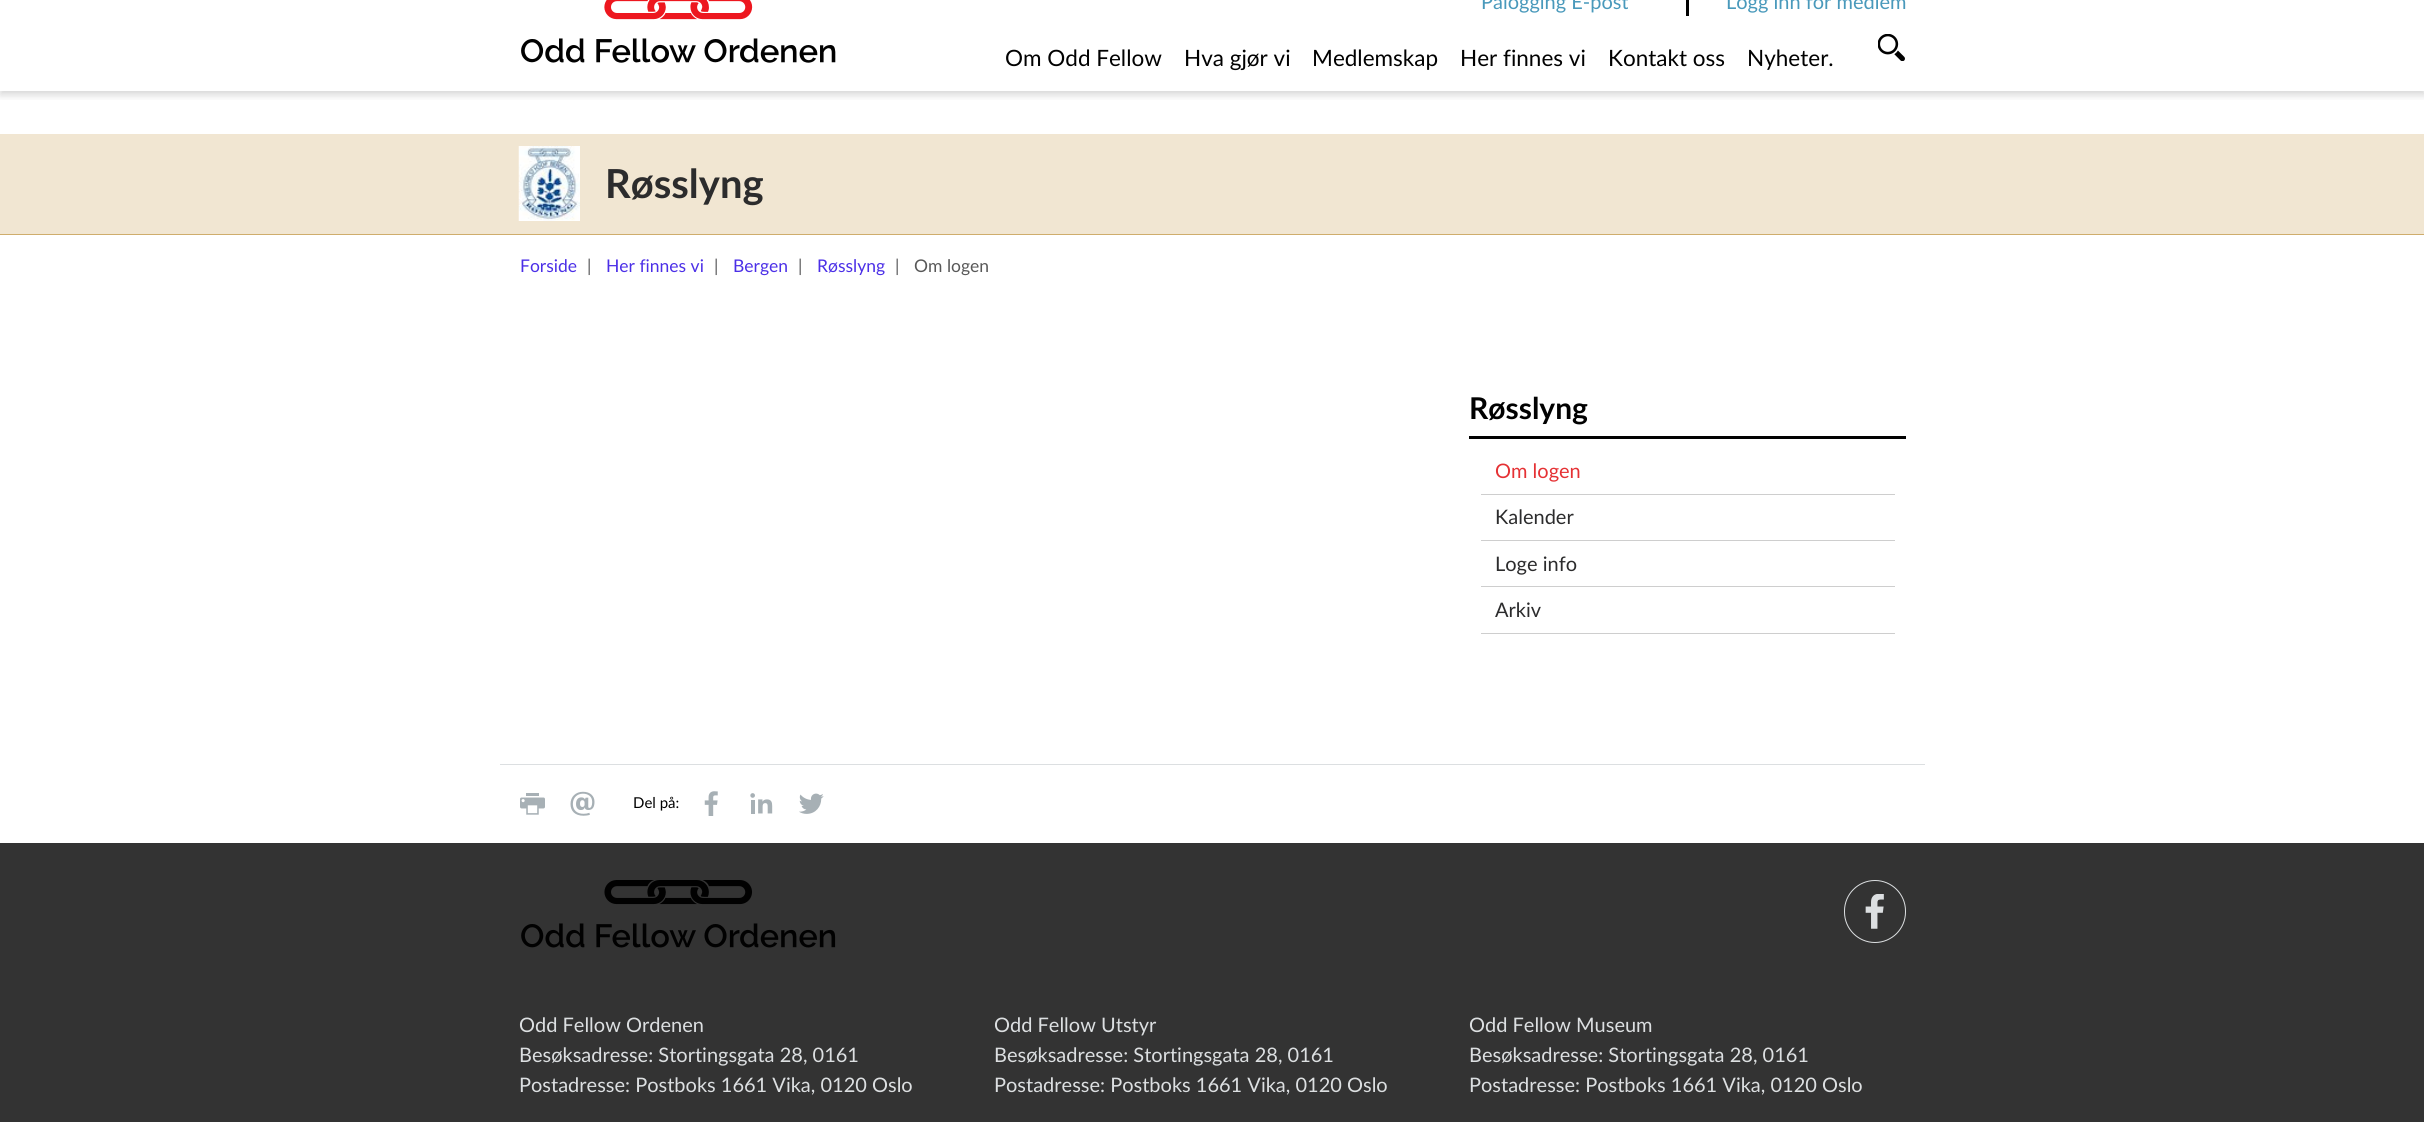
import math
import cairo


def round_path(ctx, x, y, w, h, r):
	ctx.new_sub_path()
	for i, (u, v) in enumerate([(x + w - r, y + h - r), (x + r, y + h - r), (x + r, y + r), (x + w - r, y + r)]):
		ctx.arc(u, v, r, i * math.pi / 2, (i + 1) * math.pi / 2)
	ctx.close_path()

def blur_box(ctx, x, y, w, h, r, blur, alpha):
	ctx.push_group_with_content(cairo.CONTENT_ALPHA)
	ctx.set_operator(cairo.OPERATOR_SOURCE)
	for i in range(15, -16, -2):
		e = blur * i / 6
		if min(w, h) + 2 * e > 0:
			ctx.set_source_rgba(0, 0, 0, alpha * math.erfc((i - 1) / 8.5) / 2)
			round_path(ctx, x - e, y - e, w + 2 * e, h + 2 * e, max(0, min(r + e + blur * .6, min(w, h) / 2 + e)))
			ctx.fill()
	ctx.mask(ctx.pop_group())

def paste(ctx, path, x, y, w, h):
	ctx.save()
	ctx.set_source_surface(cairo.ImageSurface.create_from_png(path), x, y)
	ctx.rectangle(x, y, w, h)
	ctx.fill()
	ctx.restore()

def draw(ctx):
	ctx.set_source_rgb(1, 1, 1)
	ctx.paint()
	ctx.save()
	ctx.rectangle(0, 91, 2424, 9)
	ctx.clip()
	ctx.set_source_rgb(0, 0, 0)
	blur_box(ctx, 0, -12, 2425, 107, 0, 4, 0.16)
	ctx.restore()
	ctx.select_font_face('Lato')
	ctx.set_font_size(20)
	ctx.set_source_rgb(0.286, 0.6, 0.733)
	ctx.move_to(1481, 9)
	ctx.show_text('Pålogging E-post')
	ctx.set_source_rgb(0.004, 0.004, 0.004)
	ctx.rectangle(1686, 0, 3, 16)
	ctx.fill()
	ctx.set_source_rgb(0.286, 0.6, 0.733)
	ctx.move_to(1726, 9)
	ctx.show_text('Logg inn for medlem')
	paste(ctx, 'media/1.png', 521, 0, 315, 63)
	ctx.set_font_size(22.5)
	ctx.set_source_rgb(0.004, 0.004, 0.004)
	for x, y, s in [
		(1005, 66, 'Om Odd Fellow'),
		(1184, 66, 'Hva gjør vi'),
		(1312, 66, 'Medlemskap'),
		(1460, 66, 'Her finnes vi'),
		(1608, 66, 'Kontakt oss'),
		(1747, 66, 'Nyheter.'),
	]:
		ctx.move_to(x, y)
		ctx.show_text(s)
	paste(ctx, 'media/2.png', 1878, 34, 27, 27)
	ctx.set_source_rgb(0.945, 0.902, 0.824)
	ctx.rectangle(0, 134, 2424, 100)
	ctx.fill()
	ctx.set_source_rgb(0.812, 0.678, 0.424)
	ctx.rectangle(0, 234, 2424, 1)
	ctx.fill()
	paste(ctx, 'media/3.png', 518, 146, 62, 75)
	ctx.select_font_face('Lato', cairo.FONT_SLANT_NORMAL, cairo.FONT_WEIGHT_BOLD)
	ctx.set_font_size(40)
	ctx.set_source_rgb(0.173, 0.173, 0.176)
	ctx.move_to(605, 198)
	ctx.show_text('Røsslyng')
	ctx.select_font_face('Lato')
	ctx.set_font_size(17.5)
	ctx.set_source_rgb(0.294, 0.184, 0.906)
	ctx.move_to(520, 272)
	ctx.show_text('Forside')
	ctx.set_source_rgb(0.365, 0.365, 0.369)
	ctx.move_to(587, 272)
	ctx.show_text('|')
	ctx.set_source_rgb(0.294, 0.184, 0.906)
	ctx.move_to(606, 272)
	ctx.show_text('Her finnes vi')
	ctx.set_source_rgb(0.365, 0.365, 0.369)
	ctx.move_to(714, 272)
	ctx.show_text('|')
	ctx.set_source_rgb(0.294, 0.184, 0.906)
	ctx.move_to(733, 272)
	ctx.show_text('Bergen')
	ctx.set_source_rgb(0.365, 0.365, 0.369)
	ctx.move_to(798, 272)
	ctx.show_text('|')
	ctx.set_source_rgb(0.294, 0.184, 0.906)
	ctx.move_to(817, 272)
	ctx.show_text('Røsslyng')
	ctx.set_source_rgb(0.365, 0.365, 0.369)
	ctx.move_to(895, 272)
	ctx.show_text('|')
	ctx.set_source_rgb(0.345, 0.345, 0.345)
	ctx.move_to(914, 272)
	ctx.show_text('Om logen')
	ctx.set_source_rgb(0.004, 0.004, 0.004)
	ctx.rectangle(1469, 436, 437, 3)
	ctx.fill()
	ctx.select_font_face('Lato', cairo.FONT_SLANT_NORMAL, cairo.FONT_WEIGHT_BOLD)
	ctx.set_font_size(30)
	ctx.move_to(1469, 419)
	ctx.show_text('Røsslyng')
	ctx.set_source_rgb(0.808, 0.808, 0.808)
	ctx.rectangle(1481, 494, 414, 1)
	ctx.fill()
	ctx.select_font_face('Lato')
	ctx.set_font_size(20)
	ctx.set_source_rgb(0.898, 0.192, 0.204)
	ctx.move_to(1495, 478)
	ctx.show_text('Om logen')
	ctx.set_source_rgb(0.808, 0.808, 0.808)
	ctx.rectangle(1481, 540, 414, 1)
	ctx.fill()
	ctx.set_source_rgb(0.173, 0.173, 0.176)
	ctx.move_to(1495, 524)
	ctx.show_text('Kalender')
	ctx.set_source_rgb(0.808, 0.808, 0.808)
	ctx.rectangle(1481, 586, 414, 1)
	ctx.fill()
	ctx.set_source_rgb(0.173, 0.173, 0.176)
	ctx.move_to(1495, 571)
	ctx.show_text('Loge info')
	ctx.set_source_rgb(0.808, 0.808, 0.808)
	ctx.rectangle(1481, 633, 414, 1)
	ctx.fill()
	ctx.set_source_rgb(0.173, 0.173, 0.176)
	ctx.move_to(1495, 617)
	ctx.show_text('Arkiv')
	ctx.set_source_rgb(0.863, 0.875, 0.882)
	ctx.rectangle(500, 764, 1425, 1)
	ctx.fill()
	paste(ctx, 'media/4.png', 520, 793, 25, 22)
	paste(ctx, 'media/5.png', 570, 791, 25, 25)
	ctx.set_font_size(15)
	ctx.set_source_rgb(0.004, 0.004, 0.004)
	ctx.move_to(633, 808)
	ctx.show_text('Del på:')
	paste(ctx, 'media/6.png', 704, 791, 14, 25)
	paste(ctx, 'media/7.png', 750, 793, 23, 21)
	paste(ctx, 'media/8.png', 799, 793, 25, 21)
	ctx.set_source_rgb(0.2, 0.2, 0.2)
	ctx.rectangle(0, 843, 2424, 279)
	ctx.fill()
	paste(ctx, 'media/9.png', 521, 880, 315, 68)
	round_path(ctx, 1844.5, 880.5, 61, 62, 30.5)
	ctx.set_source_rgb(0.863, 0.875, 0.882)
	ctx.set_line_width(1)
	ctx.stroke()
	paste(ctx, 'media/10.png', 1865, 894, 19, 35)
	ctx.set_font_size(20)
	for x, y, s in [
		(519, 1032, 'Odd Fellow Ordenen'),
		(519, 1062, 'Besøksadresse: Stortingsgata 28, 0161'),
		(519, 1092, 'Postadresse: Postboks 1661 Vika, 0120 Oslo'),
		(994, 1032, 'Odd Fellow Utstyr'),
		(994, 1062, 'Besøksadresse: Stortingsgata 28, 0161'),
		(994, 1092, 'Postadresse: Postboks 1661 Vika, 0120 Oslo'),
		(1469, 1032, 'Odd Fellow Museum'),
		(1469, 1062, 'Besøksadresse: Stortingsgata 28, 0161'),
		(1469, 1092, 'Postadresse: Postboks 1661 Vika, 0120 Oslo'),
	]:
		ctx.move_to(x, y)
		ctx.show_text(s)


surface = cairo.ImageSurface(cairo.FORMAT_RGB24, 2424, 1122)
ctx = cairo.Context(surface)
options = cairo.FontOptions()
options.set_hint_metrics(cairo.HINT_METRICS_OFF)
options.set_hint_style(cairo.HINT_STYLE_NONE)
ctx.set_font_options(options)
ctx.set_miter_limit(4)
draw(ctx)
surface.write_to_png('image.png')
